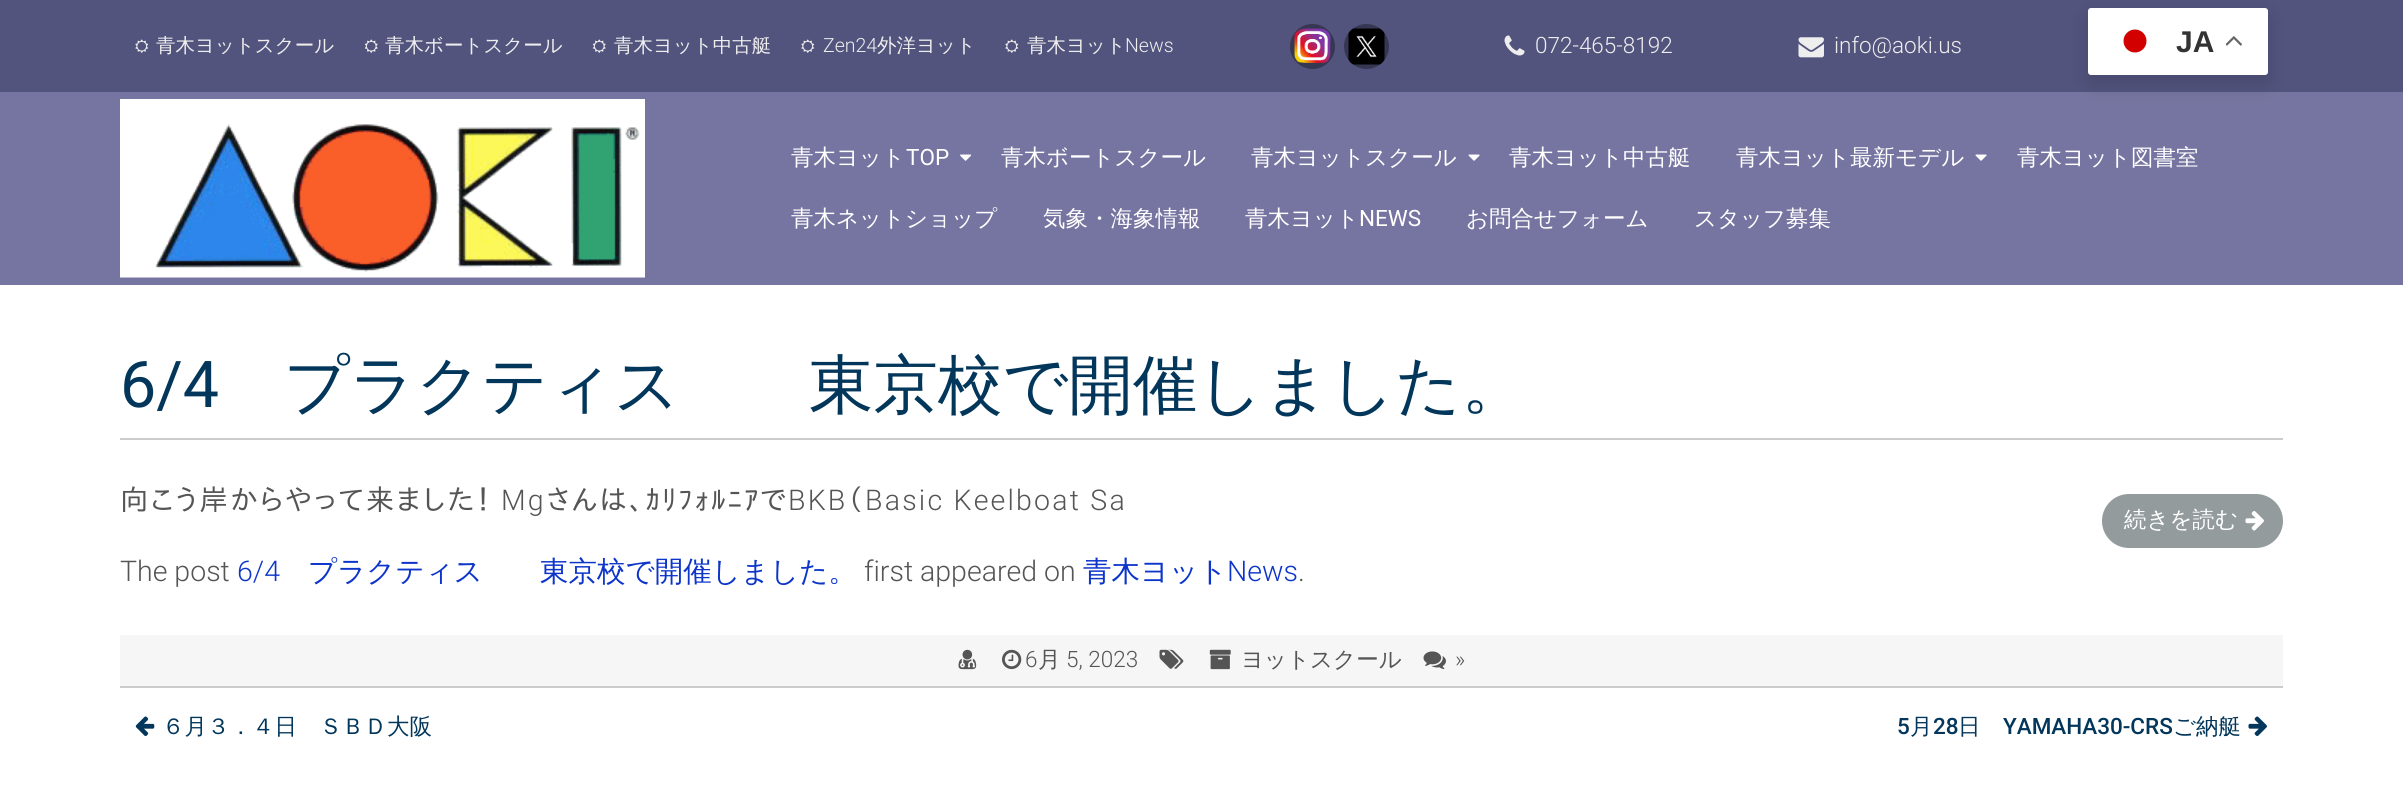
import math
import cairo


def write_spaced(ctx, x, y, s, letter, word):
	ctx.move_to(x, y)
	for ch in s:
		ctx.show_text(ch)
		ctx.rel_move_to(letter + word * (ch == ' '), 0)

def round_path(ctx, x, y, w, h, r):
	ctx.new_sub_path()
	for i, (u, v) in enumerate([(x + w - r, y + h - r), (x + r, y + h - r), (x + r, y + r), (x + w - r, y + r)]):
		ctx.arc(u, v, r, i * math.pi / 2, (i + 1) * math.pi / 2)
	ctx.close_path()

def blur_box(ctx, x, y, w, h, r, blur, alpha):
	ctx.push_group_with_content(cairo.CONTENT_ALPHA)
	ctx.set_operator(cairo.OPERATOR_SOURCE)
	for i in range(15, -16, -2):
		e = blur * i / 6
		if min(w, h) + 2 * e > 0:
			ctx.set_source_rgba(0, 0, 0, alpha * math.erfc((i - 1) / 8.5) / 2)
			round_path(ctx, x - e, y - e, w + 2 * e, h + 2 * e, max(0, min(r + e + blur * .6, min(w, h) / 2 + e)))
			ctx.fill()
	ctx.mask(ctx.pop_group())

def paste(ctx, path, x, y, w, h):
	ctx.save()
	ctx.set_source_surface(cairo.ImageSurface.create_from_png(path), x, y)
	ctx.rectangle(x, y, w, h)
	ctx.fill()
	ctx.restore()

def draw(ctx):
	ctx.set_source_rgb(1, 1, 1)
	ctx.paint()
	ctx.set_source_rgb(0.463, 0.459, 0.631)
	ctx.rectangle(0, 92, 2403, 193)
	ctx.fill()
	ctx.set_source_rgb(0.325, 0.329, 0.494)
	ctx.rectangle(0, 0, 2403, 92)
	ctx.fill()
	paste(ctx, 'media/1.png', 135, 39, 14, 14)
	ctx.select_font_face('WenQuanYi Zen Hei Medium')
	ctx.set_font_size(19.5)
	ctx.set_source_rgb(0.933, 0.933, 0.933)
	ctx.move_to(156, 52)
	ctx.show_text('青木ヨットスクール')
	paste(ctx, 'media/2.png', 364, 39, 14, 14)
	ctx.move_to(385, 52)
	ctx.show_text('青木ボートスクール')
	paste(ctx, 'media/2.png', 592, 39, 14, 14)
	ctx.move_to(614, 52)
	ctx.show_text('青木ヨット中古艇')
	paste(ctx, 'media/1.png', 801, 39, 14, 14)
	ctx.select_font_face('Roboto Light')
	ctx.move_to(823, 52)
	ctx.show_text('Zen24')
	ctx.select_font_face('WenQuanYi Zen Hei Medium')
	ctx.move_to(877, 52)
	ctx.show_text('外洋ヨット')
	paste(ctx, 'media/1.png', 1005, 39, 14, 14)
	ctx.move_to(1027, 52)
	ctx.show_text('青木ヨット')
	ctx.select_font_face('Roboto Light')
	ctx.move_to(1125, 52)
	ctx.show_text('News')
	ctx.set_source_rgb(0.212, 0.216, 0.322)
	ctx.new_path()
	ctx.arc(1312.5, 46.5, 22.5, 0, 2 * math.pi)
	ctx.fill()
	paste(ctx, 'media/3.png', 1294, 28, 37, 35)
	ctx.arc(1366.5, 46.5, 22.5, 0, 2 * math.pi)
	ctx.fill()
	paste(ctx, 'media/4.png', 1348, 28, 37, 37)
	paste(ctx, 'media/5.png', 1504, 35, 21, 21)
	ctx.set_font_size(22.5)
	ctx.set_source_rgb(0.933, 0.933, 0.933)
	ctx.move_to(1535, 53)
	ctx.show_text('072-465-8192')
	paste(ctx, 'media/6.png', 1798, 37, 26, 21)
	ctx.move_to(1834, 53)
	ctx.show_text('info@aoki.us')
	ctx.set_source_rgb(0, 0, 0)
	blur_box(ctx, 2088, 15, 180, 68, 3, 11, 0.15)
	ctx.set_source_rgb(1, 1, 1)
	round_path(ctx, 2088, 8, 180, 67, 3)
	ctx.fill()
	ctx.set_source_rgb(0.827, 0, 0)
	ctx.arc(2135, 41, 11.5, 0, 2 * math.pi)
	ctx.fill()
	ctx.select_font_face('Liberation Sans', cairo.FONT_SLANT_NORMAL, cairo.FONT_WEIGHT_BOLD)
	ctx.set_font_size(30)
	ctx.set_source_rgb(0.2, 0.2, 0.2)
	ctx.move_to(2176, 52)
	ctx.show_text('JA')
	paste(ctx, 'media/7.png', 2226, 36, 16, 10)
	paste(ctx, 'media/8.png', 120, 99, 525, 179)
	ctx.select_font_face('WenQuanYi Zen Hei Medium')
	ctx.set_font_size(22.5)
	ctx.set_source_rgb(1, 1, 1)
	ctx.move_to(791, 165)
	ctx.show_text('青木ヨット')
	ctx.select_font_face('Roboto')
	ctx.move_to(906, 165)
	ctx.show_text('TOP')
	paste(ctx, 'media/9.png', 960, 154, 12, 7)
	ctx.select_font_face('WenQuanYi Zen Hei Medium')
	ctx.move_to(1001, 165)
	ctx.show_text('青木ボートスクール')
	ctx.move_to(1251, 165)
	ctx.show_text('青木ヨットスクール')
	paste(ctx, 'media/10.png', 1468, 154, 12, 7)
	ctx.move_to(1509, 165)
	ctx.show_text('青木ヨット中古艇')
	ctx.move_to(1736, 165)
	ctx.show_text('青木ヨット最新モデル')
	paste(ctx, 'media/10.png', 1975, 154, 12, 7)
	for x, y, s in [
		(2017, 165, '青木ヨット図書室'),
		(791, 226, '青木ネットショップ'),
		(1043, 226, '気象・海象情報'),
		(1245, 226, '青木ヨット'),
	]:
		ctx.move_to(x, y)
		ctx.show_text(s)
	ctx.select_font_face('Roboto')
	ctx.move_to(1359, 226)
	ctx.show_text('NEWS')
	ctx.select_font_face('WenQuanYi Zen Hei Medium')
	ctx.move_to(1466, 226)
	ctx.show_text('お問合せフォーム')
	ctx.move_to(1694, 226)
	ctx.show_text('スタッフ募集')
	ctx.select_font_face('Roboto')
	ctx.set_font_size(64.5)
	ctx.set_source_rgb(0.008, 0.212, 0.353)
	ctx.move_to(120, 407)
	ctx.show_text('6/4')
	ctx.select_font_face('WenQuanYi Zen Hei Medium')
	ctx.move_to(284, 407)
	ctx.show_text('プラクティス　　東京校で開催しました。')
	ctx.set_source_rgb(0.8, 0.8, 0.8)
	ctx.rectangle(120, 438, 2163, 2)
	ctx.fill()
	ctx.select_font_face('IPAPGothic')
	ctx.set_font_size(28.5)
	ctx.set_source_rgb(0.333, 0.333, 0.333)
	write_spaced(ctx, 120, 510, '向こう岸からやって来ました！', 2.2, 0)
	ctx.select_font_face('Roboto Light')
	write_spaced(ctx, 501, 510, 'Mg', 2.2, 0)
	ctx.select_font_face('IPAPGothic')
	write_spaced(ctx, 546, 510, 'さんは、ｶﾘﾌｫﾙﾆｱで', 2.2, 0)
	ctx.select_font_face('Roboto Light')
	write_spaced(ctx, 788, 510, 'BKB', 2.2, 0)
	ctx.select_font_face('IPAPGothic')
	write_spaced(ctx, 847, 510, '（', 2.2, 0)
	ctx.select_font_face('Roboto Light')
	write_spaced(ctx, 865, 510, 'Basic Keelboat Sa', 2.2, 0)
	ctx.set_source_rgb(0.576, 0.608, 0.616)
	round_path(ctx, 2102, 494, 181, 54, 27)
	ctx.fill()
	ctx.select_font_face('WenQuanYi Zen Hei Medium')
	ctx.set_font_size(22.5)
	ctx.set_source_rgb(1, 1, 1)
	ctx.move_to(2124, 527)
	ctx.show_text('続きを読む')
	paste(ctx, 'media/11.png', 2245, 511, 19, 20)
	ctx.select_font_face('Roboto Light')
	ctx.set_font_size(28.5)
	ctx.set_source_rgb(0.333, 0.333, 0.333)
	ctx.move_to(120, 581)
	ctx.show_text('The post')
	ctx.set_source_rgb(0.051, 0.208, 0.792)
	ctx.move_to(237, 581)
	ctx.show_text('6/4')
	ctx.select_font_face('WenQuanYi Zen Hei Medium')
	ctx.move_to(308, 581)
	ctx.show_text('プラクティス　　東京校で開催しました。')
	ctx.select_font_face('Roboto Light')
	ctx.set_source_rgb(0.333, 0.333, 0.333)
	ctx.move_to(864, 581)
	ctx.show_text('first appeared on')
	ctx.select_font_face('WenQuanYi Zen Hei Medium')
	ctx.set_source_rgb(0.051, 0.208, 0.792)
	ctx.move_to(1083, 581)
	ctx.show_text('青木ヨット')
	ctx.select_font_face('Roboto Light')
	ctx.move_to(1227, 581)
	ctx.show_text('News')
	ctx.set_source_rgb(0.333, 0.333, 0.333)
	ctx.move_to(1298, 581)
	ctx.show_text('.')
	ctx.set_source_rgb(0.961, 0.961, 0.961)
	ctx.rectangle(120, 635, 2163, 51)
	ctx.fill()
	paste(ctx, 'media/12.png', 958, 649, 19, 21)
	paste(ctx, 'media/13.png', 1002, 649, 20, 21)
	ctx.set_font_size(22.5)
	ctx.set_source_rgb(0.333, 0.333, 0.333)
	ctx.move_to(1025, 667)
	ctx.show_text('6')
	ctx.select_font_face('WenQuanYi Zen Hei Medium')
	ctx.move_to(1038, 667)
	ctx.show_text('月')
	ctx.select_font_face('Roboto Light')
	ctx.move_to(1066, 667)
	ctx.show_text('5, 2023')
	paste(ctx, 'media/14.png', 1159, 649, 25, 20)
	paste(ctx, 'media/15.png', 1209, 649, 22, 21)
	ctx.select_font_face('WenQuanYi Zen Hei Medium')
	ctx.move_to(1241, 667)
	ctx.show_text('ヨットスクール')
	paste(ctx, 'media/16.png', 1423, 651, 23, 19)
	ctx.select_font_face('Roboto Light')
	ctx.move_to(1455, 667)
	ctx.show_text('»')
	ctx.set_source_rgb(0.8, 0.8, 0.8)
	ctx.rectangle(120, 686, 2163, 2)
	ctx.fill()
	paste(ctx, 'media/17.png', 135, 716, 20, 20)
	ctx.select_font_face('WenQuanYi Zen Hei Medium')
	ctx.set_source_rgb(0.008, 0.212, 0.353)
	ctx.move_to(162, 734)
	ctx.show_text('６月３．４日　ＳＢＤ大阪')
	ctx.select_font_face('Roboto Medium')
	ctx.move_to(1897, 734)
	ctx.show_text('5')
	ctx.select_font_face('WenQuanYi Zen Hei Medium')
	ctx.move_to(1910, 734)
	ctx.show_text('月')
	ctx.select_font_face('Roboto Medium')
	ctx.move_to(1933, 734)
	ctx.show_text('28')
	ctx.select_font_face('WenQuanYi Zen Hei Medium')
	ctx.move_to(1958, 734)
	ctx.show_text('日')
	ctx.select_font_face('Roboto Medium')
	ctx.move_to(2003, 734)
	ctx.show_text('YAMAHA30-CRS')
	ctx.select_font_face('WenQuanYi Zen Hei Medium')
	ctx.move_to(2173, 734)
	ctx.show_text('ご納艇')
	paste(ctx, 'media/18.png', 2248, 716, 19, 20)


surface = cairo.ImageSurface(cairo.FORMAT_RGB24, 2403, 792)
ctx = cairo.Context(surface)
options = cairo.FontOptions()
options.set_hint_metrics(cairo.HINT_METRICS_OFF)
options.set_hint_style(cairo.HINT_STYLE_NONE)
ctx.set_font_options(options)
ctx.set_miter_limit(4)
draw(ctx)
surface.write_to_png('image.png')
